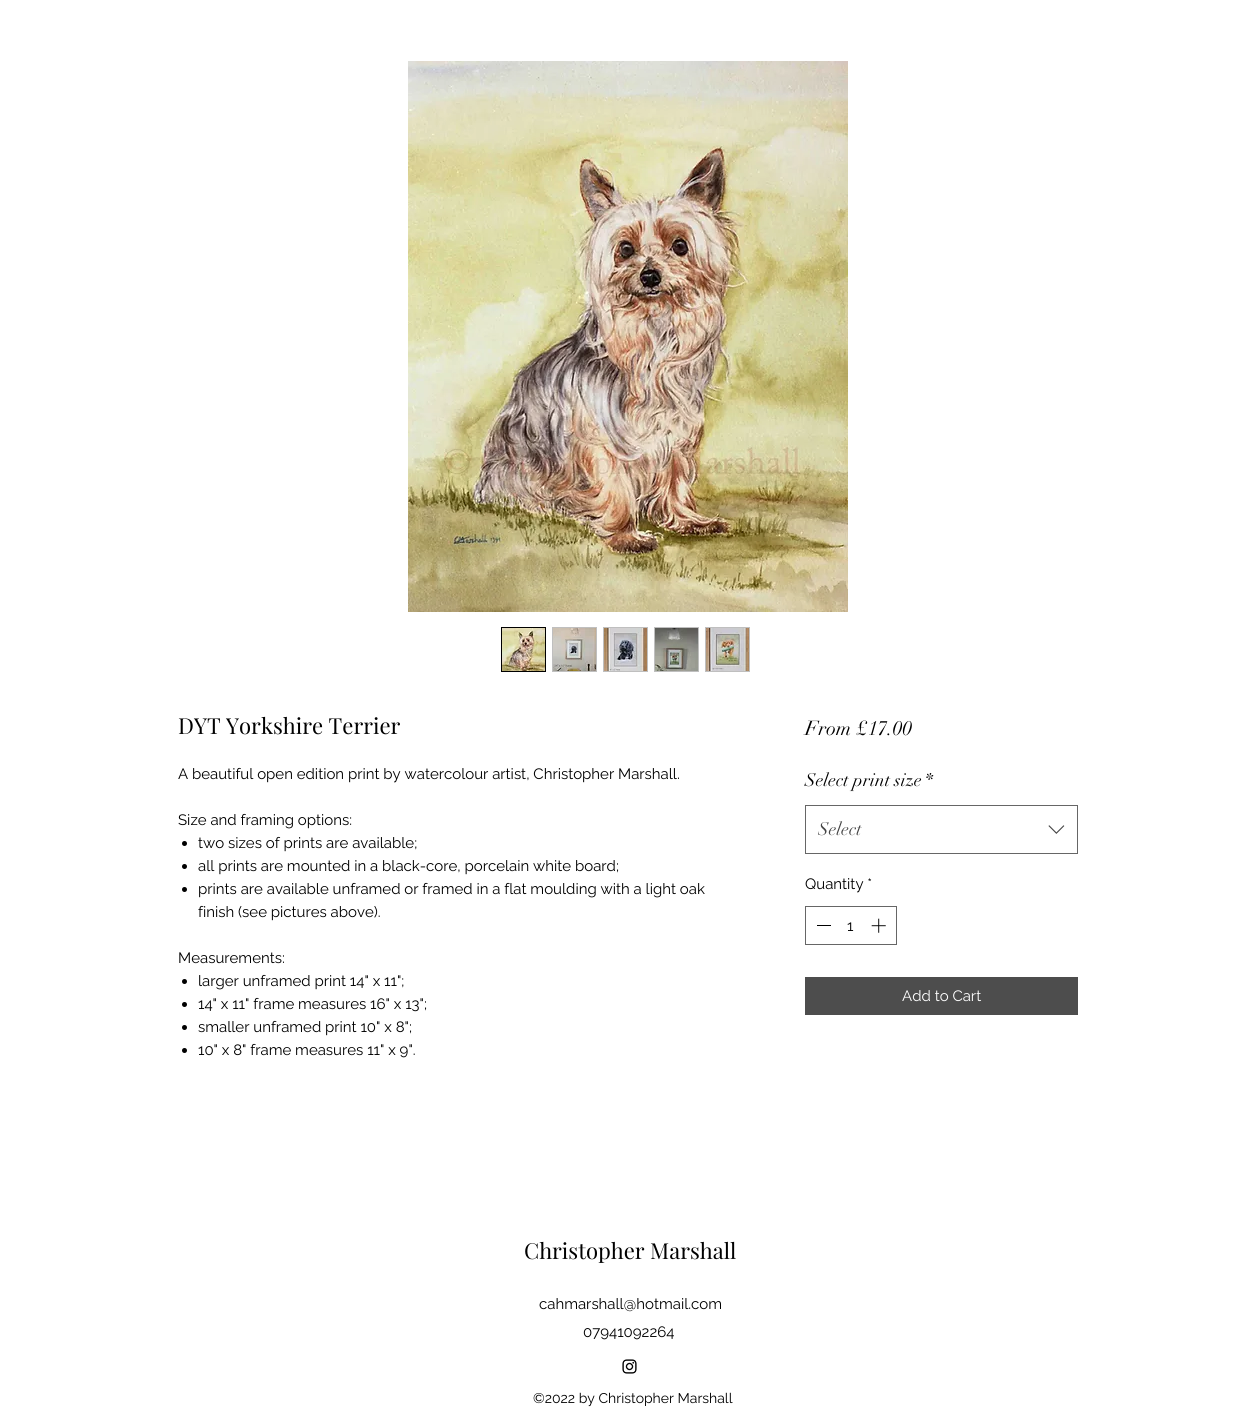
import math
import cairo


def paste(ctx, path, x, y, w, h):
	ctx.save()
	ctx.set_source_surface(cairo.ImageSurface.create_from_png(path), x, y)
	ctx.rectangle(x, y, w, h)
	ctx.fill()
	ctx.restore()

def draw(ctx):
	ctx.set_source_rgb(1, 1, 1)
	ctx.paint()
	paste(ctx, 'media/1.png', 408, 61, 440, 551)
	ctx.rectangle(501.5, 627.5, 44, 44)
	ctx.set_source_rgb(0, 0, 0)
	ctx.set_line_width(1)
	ctx.stroke()
	paste(ctx, 'media/2.png', 502, 628, 43, 43)
	ctx.set_source_rgb(0.749, 0.749, 0.749)
	ctx.rectangle(552, 627, 45, 45)
	ctx.fill()
	paste(ctx, 'media/3.png', 553, 628, 43, 43)
	ctx.rectangle(603, 627, 45, 45)
	ctx.fill()
	paste(ctx, 'media/4.png', 604, 628, 43, 43)
	ctx.rectangle(654, 627, 45, 45)
	ctx.fill()
	paste(ctx, 'media/5.png', 655, 628, 43, 43)
	ctx.rectangle(705, 627, 45, 45)
	ctx.fill()
	paste(ctx, 'media/6.png', 706, 628, 43, 43)
	ctx.select_font_face('Playfair Display')
	ctx.set_font_size(22)
	ctx.set_source_rgb(0, 0, 0)
	ctx.move_to(178, 734)
	ctx.show_text('DYT Yorkshire Terrier')
	ctx.select_font_face('Raleway')
	ctx.set_font_size(15)
	ctx.move_to(178, 779)
	ctx.show_text('A beautiful open edition print by watercolour artist, Christopher Marshall.')
	ctx.move_to(178, 825)
	ctx.show_text('Size and framing options:')
	ctx.new_path()
	ctx.arc(184.5, 843.5, 2.5, 0, 2 * math.pi)
	ctx.fill()
	ctx.move_to(198, 848)
	ctx.show_text('two sizes of prints are available;')
	ctx.new_path()
	ctx.arc(184.5, 866.5, 2.5, 0, 2 * math.pi)
	ctx.fill()
	ctx.move_to(198, 871)
	ctx.show_text('all prints are mounted in a black-core, porcelain white board;')
	ctx.new_path()
	ctx.arc(184.5, 889.5, 2.5, 0, 2 * math.pi)
	ctx.fill()
	for x, y, s in [
		(198, 894, 'prints are available unframed or framed in a flat moulding with a light oak'),
		(198, 917, 'finish (see pictures above).'),
		(178, 963, 'Measurements:'),
	]:
		ctx.move_to(x, y)
		ctx.show_text(s)
	ctx.new_path()
	ctx.arc(184.5, 981.5, 2.5, 0, 2 * math.pi)
	ctx.fill()
	ctx.move_to(198, 986)
	ctx.show_text('larger unframed print 14" x 11";')
	ctx.new_path()
	ctx.arc(184.5, 1004.5, 2.5, 0, 2 * math.pi)
	ctx.fill()
	ctx.move_to(198, 1009)
	ctx.show_text('14" x 11" frame measures 16" x 13";')
	ctx.new_path()
	ctx.arc(184.5, 1027.5, 2.5, 0, 2 * math.pi)
	ctx.fill()
	ctx.move_to(198, 1032)
	ctx.show_text('smaller unframed print 10" x 8";')
	ctx.new_path()
	ctx.arc(184.5, 1050.5, 2.5, 0, 2 * math.pi)
	ctx.fill()
	ctx.move_to(198, 1055)
	ctx.show_text('10" x 8" frame measures 11" x 9".')
	ctx.select_font_face('didot')
	ctx.set_font_size(20)
	ctx.move_to(805, 735)
	ctx.show_text('From £17.00')
	ctx.set_font_size(18)
	ctx.move_to(805, 786)
	ctx.show_text('Select print size')
	ctx.move_to(925, 786)
	ctx.show_text('*')
	ctx.rectangle(805.5, 805.5, 272, 48)
	ctx.set_source_rgb(0.4, 0.4, 0.4)
	ctx.stroke()
	ctx.save()
	ctx.rectangle(818, 814, 221, 31)
	ctx.clip()
	ctx.set_source_rgb(0.267, 0.267, 0.267)
	ctx.move_to(818, 835)
	ctx.show_text('Select')
	ctx.restore()
	paste(ctx, 'media/7.png', 1048, 825, 17, 9)
	ctx.select_font_face('Raleway')
	ctx.set_font_size(15)
	ctx.set_source_rgb(0, 0, 0)
	ctx.move_to(805, 889)
	ctx.show_text('Quantity *')
	ctx.rectangle(805.5, 906.5, 91, 38)
	ctx.set_source_rgb(0.4, 0.4, 0.4)
	ctx.stroke()
	ctx.set_source_rgb(0, 0, 0)
	ctx.rectangle(817, 925, 14, 1)
	ctx.fill()
	ctx.move_to(847, 931)
	ctx.show_text('1')
	paste(ctx, 'media/8.png', 871, 918, 15, 15)
	ctx.set_source_rgb(0.302, 0.302, 0.302)
	ctx.rectangle(805, 977, 273, 38)
	ctx.fill()
	ctx.set_source_rgb(1, 1, 1)
	ctx.move_to(902, 1001)
	ctx.show_text('Add to Cart')
	ctx.select_font_face('Playfair Display')
	ctx.set_font_size(22)
	ctx.set_source_rgb(0, 0, 0)
	ctx.move_to(524, 1259)
	ctx.show_text('Christopher Marshall')
	ctx.select_font_face('Raleway')
	ctx.set_font_size(15)
	ctx.move_to(539, 1309)
	ctx.show_text('cahmarshall@hotmail.com')
	ctx.move_to(583, 1337)
	ctx.show_text('07941092264')
	paste(ctx, 'media/9.png', 622, 1359, 15, 15)
	ctx.set_font_size(14)
	ctx.move_to(533, 1403)
	ctx.show_text('©2022 by Christopher Marshall')


surface = cairo.ImageSurface(cairo.FORMAT_RGB24, 1256, 1421)
ctx = cairo.Context(surface)
options = cairo.FontOptions()
options.set_hint_metrics(cairo.HINT_METRICS_OFF)
options.set_hint_style(cairo.HINT_STYLE_NONE)
ctx.set_font_options(options)
ctx.set_miter_limit(4)
draw(ctx)
surface.write_to_png('image.png')
